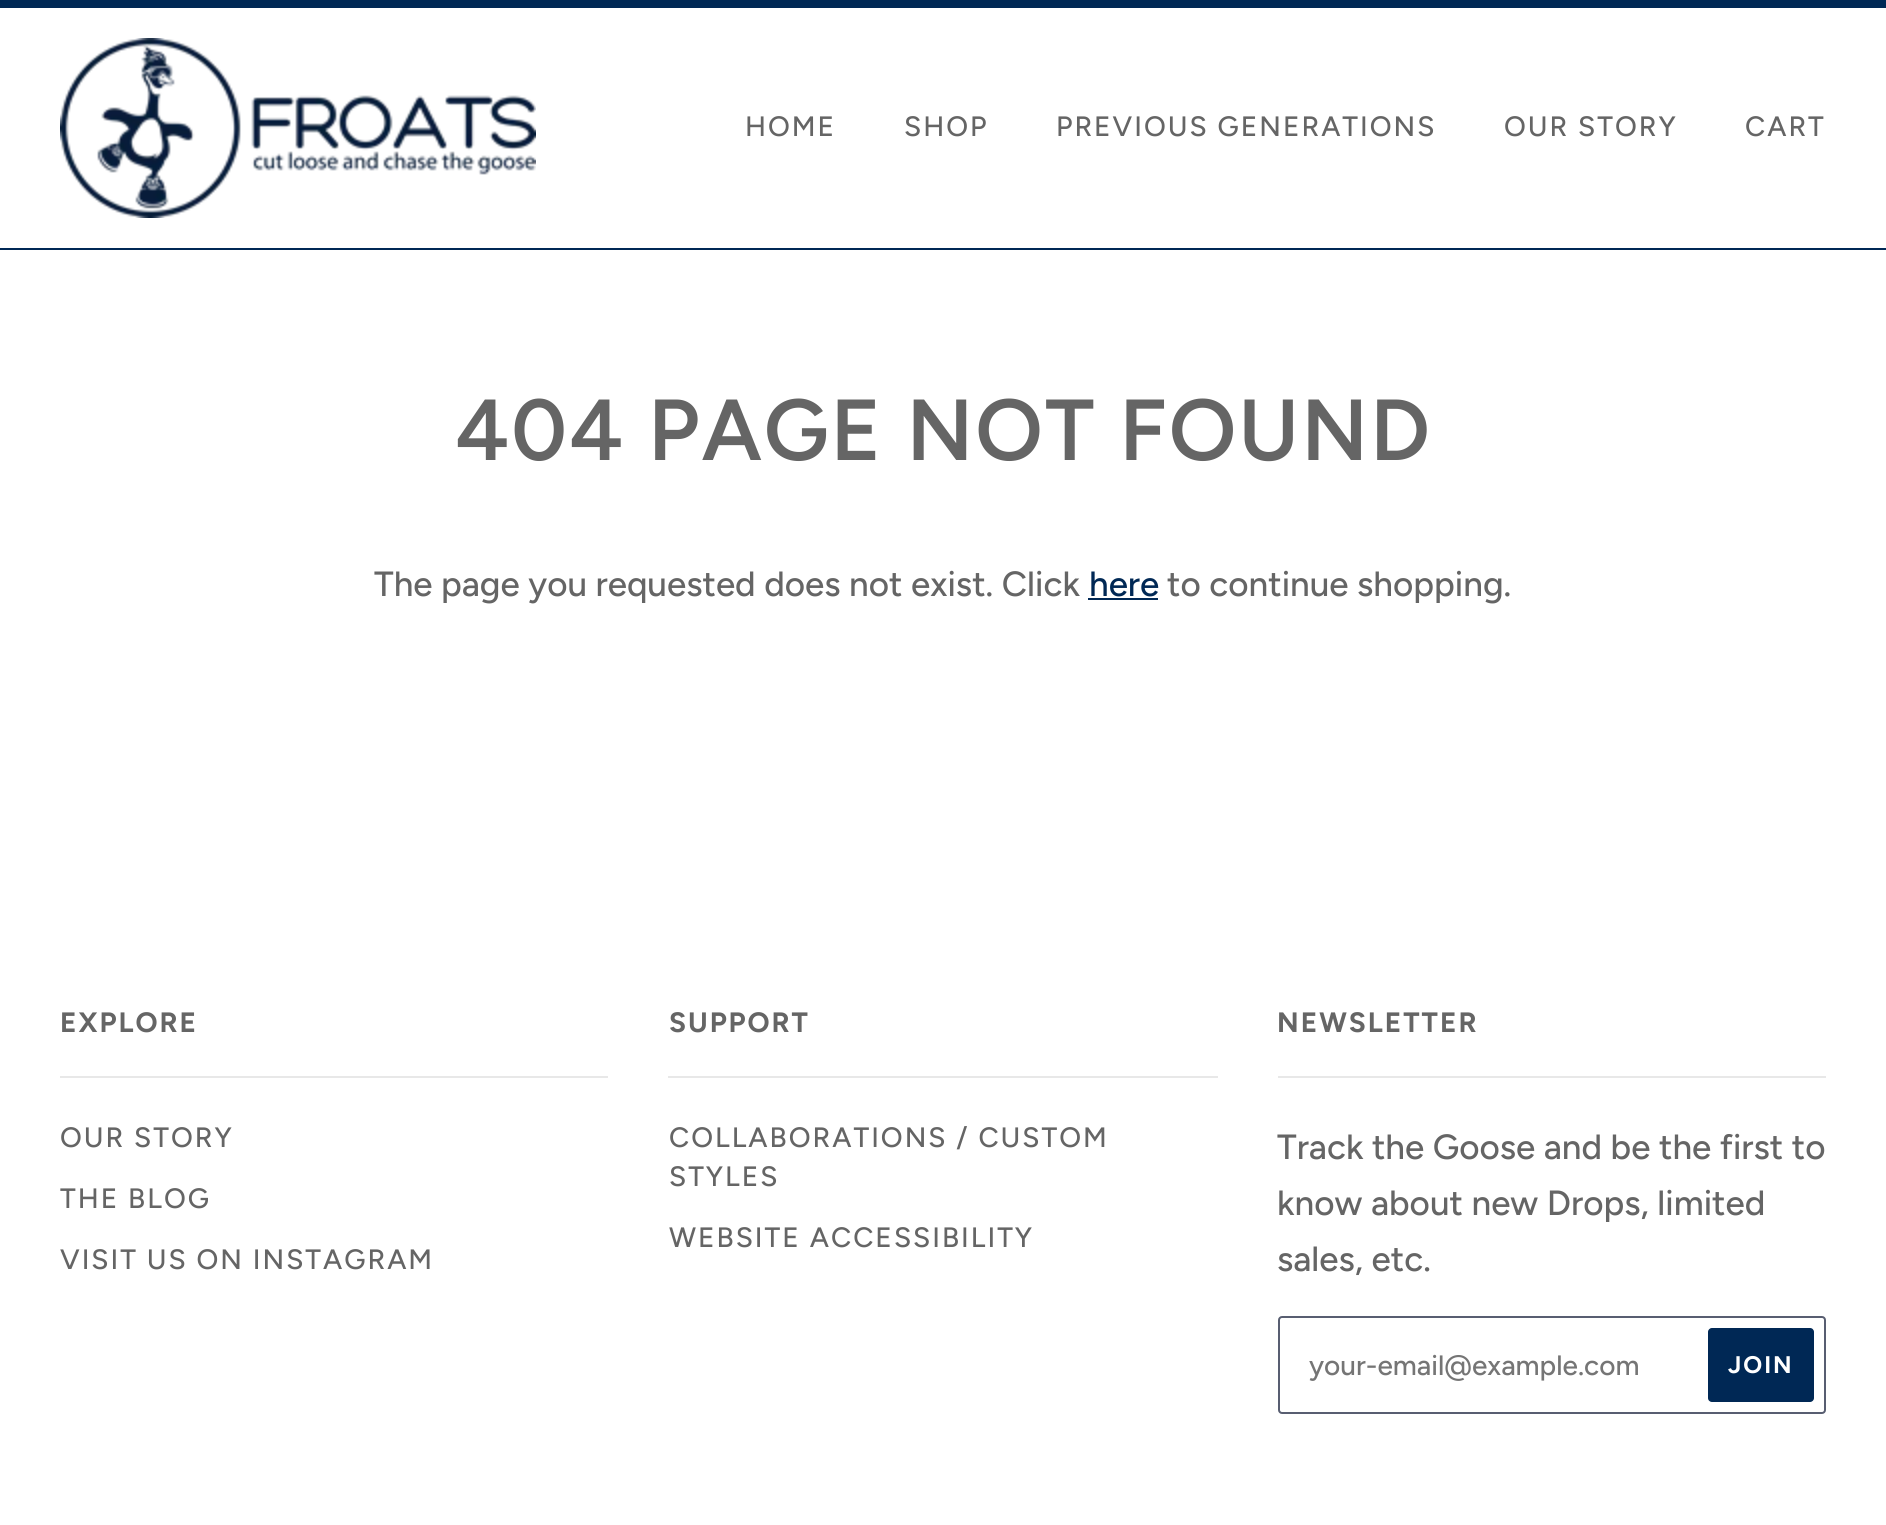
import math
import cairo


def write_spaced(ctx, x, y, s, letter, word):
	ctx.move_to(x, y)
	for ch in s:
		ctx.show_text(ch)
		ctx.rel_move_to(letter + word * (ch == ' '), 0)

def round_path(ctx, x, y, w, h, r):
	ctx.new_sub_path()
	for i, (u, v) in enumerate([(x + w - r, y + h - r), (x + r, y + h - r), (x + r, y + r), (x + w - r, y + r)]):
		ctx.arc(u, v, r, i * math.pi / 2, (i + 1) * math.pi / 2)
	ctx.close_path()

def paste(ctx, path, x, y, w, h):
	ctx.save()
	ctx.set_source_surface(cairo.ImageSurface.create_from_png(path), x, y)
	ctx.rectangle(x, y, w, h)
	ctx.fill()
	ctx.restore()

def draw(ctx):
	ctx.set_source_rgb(1, 1, 1)
	ctx.paint()
	ctx.set_source_rgb(0, 0.157, 0.333)
	ctx.rectangle(0, 0, 1886, 8)
	ctx.fill()
	ctx.rectangle(0, 248, 1886, 2)
	ctx.fill()
	paste(ctx, 'media/1.png', 60, 38, 476, 180)
	ctx.select_font_face('Figtree Medium')
	ctx.set_font_size(28)
	ctx.set_source_rgb(0.396, 0.396, 0.396)
	for x, y, s in [
		(745, 136, 'HOME'),
		(904, 136, 'SHOP'),
		(1056, 136, 'PREVIOUS GENERATIONS'),
		(1504, 136, 'OUR STORY'),
		(1745, 136, 'CART'),
	]:
		write_spaced(ctx, x, y, s, 2, 0)
	ctx.select_font_face('Figtree SemiBold')
	ctx.set_font_size(86.4)
	write_spaced(ctx, 455, 460, '404 PAGE NOT FOUND', 2, 0)
	ctx.select_font_face('Figtree Medium')
	ctx.set_font_size(35)
	ctx.move_to(374, 596)
	ctx.show_text('The page you requested does not exist. Click')
	ctx.set_source_rgb(0, 0.157, 0.333)
	ctx.move_to(1089, 596)
	ctx.show_text('here')
	ctx.rectangle(1088, 598, 70, 2)
	ctx.fill()
	ctx.set_source_rgb(0.396, 0.396, 0.396)
	ctx.move_to(1167, 596)
	ctx.show_text('to continue shopping.')
	ctx.select_font_face('Figtree', cairo.FONT_SLANT_NORMAL, cairo.FONT_WEIGHT_BOLD)
	ctx.set_font_size(28)
	write_spaced(ctx, 60, 1032, 'EXPLORE', 2, 0)
	ctx.set_source_rgb(0.91, 0.91, 0.91)
	ctx.rectangle(60, 1076, 548, 2)
	ctx.fill()
	ctx.select_font_face('Figtree Medium')
	ctx.set_source_rgb(0.396, 0.396, 0.396)
	for x, y, s in [
		(60, 1147, 'OUR STORY'),
		(60, 1208, 'THE BLOG'),
		(60, 1269, 'VISIT US ON INSTAGRAM'),
	]:
		write_spaced(ctx, x, y, s, 2, 0)
	ctx.select_font_face('Figtree', cairo.FONT_SLANT_NORMAL, cairo.FONT_WEIGHT_BOLD)
	write_spaced(ctx, 669, 1032, 'SUPPORT', 2, 0)
	ctx.set_source_rgb(0.91, 0.91, 0.91)
	ctx.rectangle(668, 1076, 550, 2)
	ctx.fill()
	ctx.select_font_face('Figtree Medium')
	ctx.set_source_rgb(0.396, 0.396, 0.396)
	for x, y, s in [
		(669, 1147, 'COLLABORATIONS / CUSTOM'),
		(669, 1186, 'STYLES'),
		(669, 1247, 'WEBSITE ACCESSIBILITY'),
	]:
		write_spaced(ctx, x, y, s, 2, 0)
	ctx.select_font_face('Figtree', cairo.FONT_SLANT_NORMAL, cairo.FONT_WEIGHT_BOLD)
	write_spaced(ctx, 1277, 1032, 'NEWSLETTER', 2, 0)
	ctx.set_source_rgb(0.91, 0.91, 0.91)
	ctx.rectangle(1278, 1076, 548, 2)
	ctx.fill()
	ctx.select_font_face('Figtree Medium')
	ctx.set_font_size(35)
	ctx.set_source_rgb(0.396, 0.396, 0.396)
	for x, y, s in [
		(1277, 1159, 'Track the Goose and be the first to'),
		(1277, 1215, 'know about new Drops, limited'),
		(1277, 1271, 'sales, etc.'),
	]:
		ctx.move_to(x, y)
		ctx.show_text(s)
	round_path(ctx, 1279, 1317, 546, 96, 3)
	ctx.set_source_rgb(0.345, 0.369, 0.443)
	ctx.stroke()
	ctx.set_font_size(28)
	ctx.set_source_rgb(0.459, 0.459, 0.459)
	ctx.move_to(1309, 1375)
	ctx.show_text('your-email@example.com')
	ctx.set_source_rgb(0, 0.157, 0.333)
	round_path(ctx, 1708, 1328, 106, 74, 4)
	ctx.fill()
	ctx.select_font_face('Figtree', cairo.FONT_SLANT_NORMAL, cairo.FONT_WEIGHT_BOLD)
	ctx.set_font_size(24)
	ctx.set_source_rgb(1, 1, 1)
	write_spaced(ctx, 1728, 1373, 'JOIN', 2, 0)


surface = cairo.ImageSurface(cairo.FORMAT_RGB24, 1886, 1525)
ctx = cairo.Context(surface)
options = cairo.FontOptions()
options.set_hint_metrics(cairo.HINT_METRICS_OFF)
options.set_hint_style(cairo.HINT_STYLE_NONE)
ctx.set_font_options(options)
ctx.set_miter_limit(4)
draw(ctx)
surface.write_to_png('image.png')
